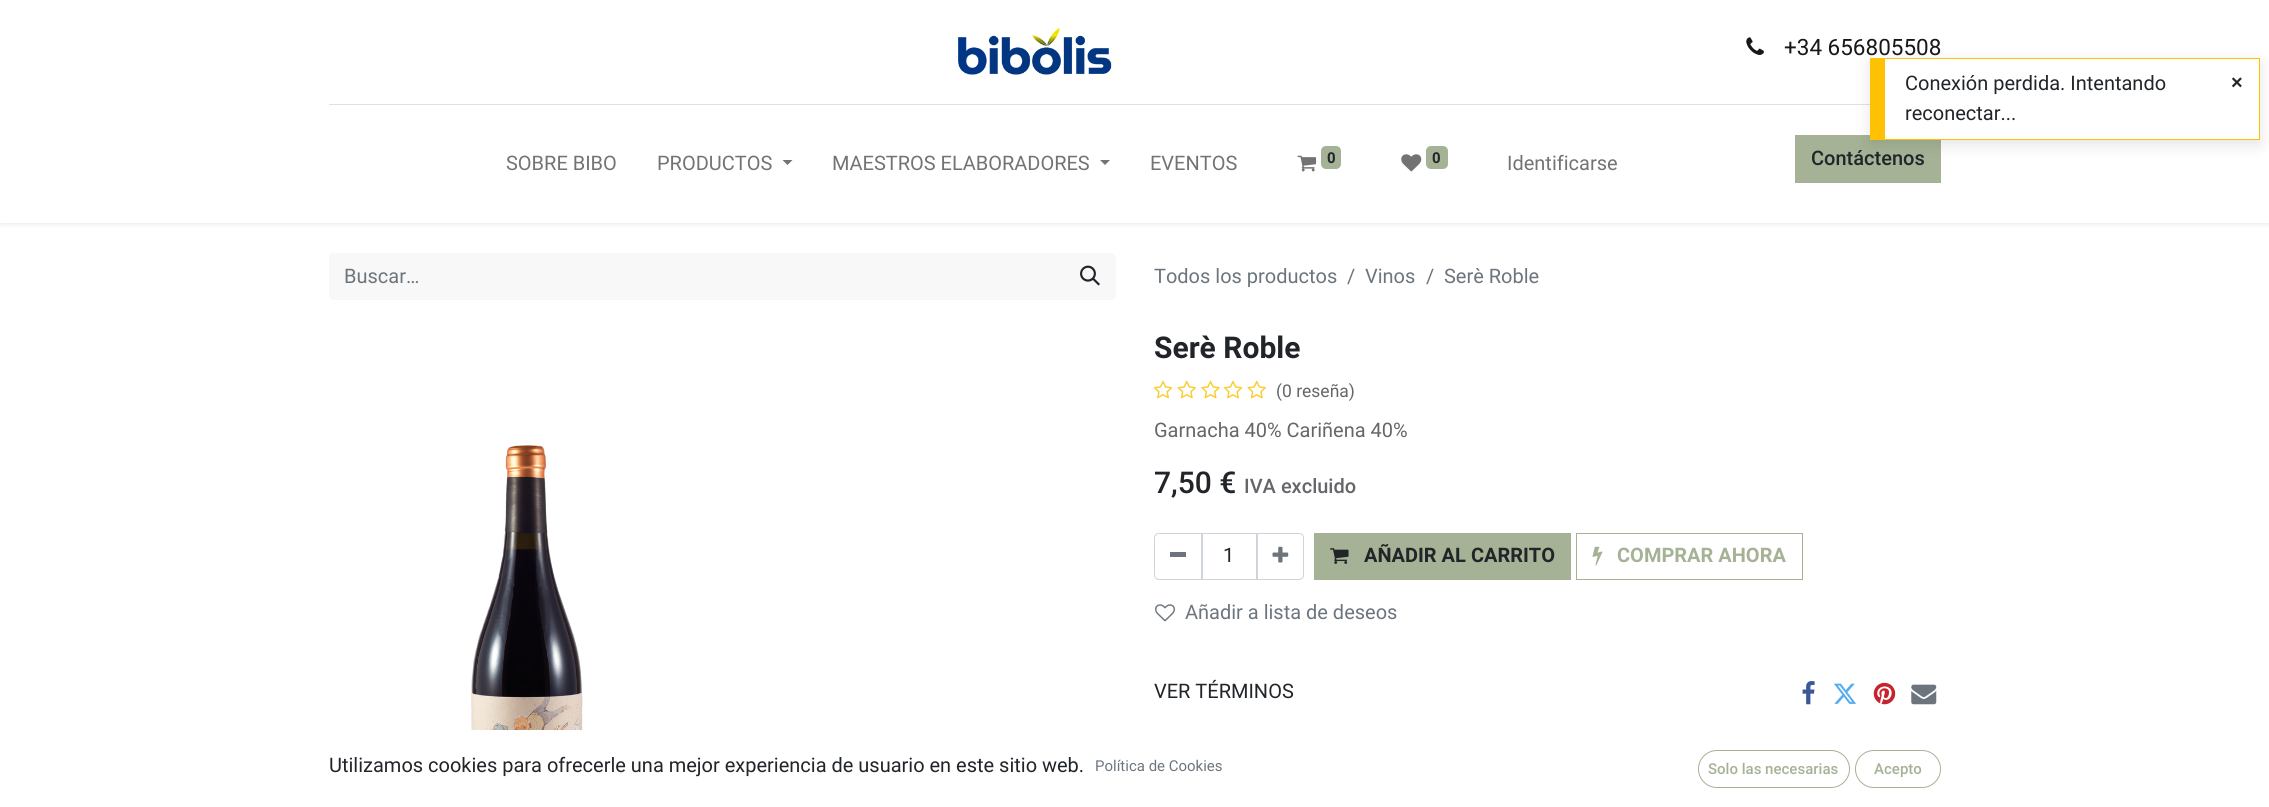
import math
import cairo


def round_path(ctx, x, y, w, h, r):
	ctx.new_sub_path()
	for i, (u, v) in enumerate([(x + w - r, y + h - r), (x + r, y + h - r), (x + r, y + r), (x + w - r, y + r)]):
		ctx.arc(u, v, r, i * math.pi / 2, (i + 1) * math.pi / 2)
	ctx.close_path()

def blur_box(ctx, x, y, w, h, r, blur, alpha):
	ctx.push_group_with_content(cairo.CONTENT_ALPHA)
	ctx.set_operator(cairo.OPERATOR_SOURCE)
	for i in range(15, -16, -2):
		e = blur * i / 6
		if min(w, h) + 2 * e > 0:
			ctx.set_source_rgba(0, 0, 0, alpha * math.erfc((i - 1) / 8.5) / 2)
			round_path(ctx, x - e, y - e, w + 2 * e, h + 2 * e, max(0, min(r + e + blur * .6, min(w, h) / 2 + e)))
			ctx.fill()
	ctx.mask(ctx.pop_group())

def paste(ctx, path, x, y, w, h):
	ctx.save()
	ctx.set_source_surface(cairo.ImageSurface.create_from_png(path), x, y)
	ctx.rectangle(x, y, w, h)
	ctx.fill()
	ctx.restore()

def draw(ctx):
	ctx.set_source_rgb(1, 1, 1)
	ctx.paint()
	ctx.set_source_rgb(0, 0, 0)
	blur_box(ctx, 0, 3, 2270, 222, 0, 2.5, 0.07)
	ctx.set_source_rgb(1, 1, 1)
	ctx.rectangle(0, 0, 2269, 223)
	ctx.fill()
	paste(ctx, 'media/1.png', 958, 28, 154, 47)
	paste(ctx, 'media/2.png', 1746, 37, 18, 18)
	ctx.select_font_face('Roboto')
	ctx.set_font_size(22.5)
	ctx.set_source_rgb(0.086, 0.094, 0.106)
	ctx.move_to(1784, 55)
	ctx.show_text('+34 656805508')
	ctx.set_source_rgb(0.871, 0.886, 0.902)
	ctx.rectangle(329, 104, 1541, 1)
	ctx.fill()
	ctx.set_font_size(20)
	ctx.set_source_rgb(0.451, 0.451, 0.451)
	ctx.move_to(506, 170)
	ctx.show_text('SOBRE BIBO')
	ctx.move_to(657, 170)
	ctx.show_text('PRODUCTOS')
	ctx.new_path()
	ctx.move_to(782.5, 160)
	ctx.line_to(792.5, 160)
	ctx.line_to(787.5, 165)
	ctx.close_path()
	ctx.fill()
	ctx.move_to(832, 170)
	ctx.show_text('MAESTROS ELABORADORES')
	ctx.new_path()
	ctx.move_to(1100, 160)
	ctx.line_to(1110, 160)
	ctx.line_to(1105, 165)
	ctx.close_path()
	ctx.fill()
	ctx.move_to(1150, 170)
	ctx.show_text('EVENTOS')
	paste(ctx, 'media/3.png', 1297, 155, 20, 17)
	ctx.set_source_rgb(0.651, 0.698, 0.584)
	round_path(ctx, 1321, 146, 20, 23, 5)
	ctx.fill()
	ctx.select_font_face('Roboto', cairo.FONT_SLANT_NORMAL, cairo.FONT_WEIGHT_BOLD)
	ctx.set_font_size(15)
	ctx.set_source_rgb(0.129, 0.145, 0.161)
	ctx.move_to(1327, 163)
	ctx.show_text('0')
	paste(ctx, 'media/4.png', 1401, 154, 21, 18)
	ctx.set_source_rgb(0.651, 0.698, 0.584)
	round_path(ctx, 1426, 146, 22, 23, 5)
	ctx.fill()
	ctx.set_source_rgb(0.129, 0.145, 0.161)
	ctx.move_to(1432, 163)
	ctx.show_text('0')
	ctx.select_font_face('Roboto')
	ctx.set_font_size(20)
	ctx.set_source_rgb(0.451, 0.451, 0.451)
	ctx.move_to(1507, 170)
	ctx.show_text('Identificarse')
	ctx.set_source_rgb(0.651, 0.698, 0.584)
	ctx.rectangle(1795, 135, 146, 48)
	ctx.fill()
	ctx.select_font_face('Roboto Medium')
	ctx.set_source_rgb(0.129, 0.145, 0.161)
	ctx.move_to(1811, 165)
	ctx.show_text('Contáctenos')
	ctx.set_source_rgb(0.969, 0.969, 0.969)
	ctx.new_path()
	ctx.move_to(334, 253)
	ctx.line_to(1065, 253)
	ctx.line_to(1065, 300)
	ctx.line_to(334, 300)
	ctx.curve_to(331, 300, 329, 298, 329, 295)
	ctx.line_to(329, 258)
	ctx.curve_to(329, 255, 331, 253, 334, 253)
	ctx.close_path()
	ctx.fill()
	ctx.select_font_face('Roboto')
	ctx.set_source_rgb(0.424, 0.459, 0.49)
	ctx.move_to(344, 283)
	ctx.show_text('Buscar…')
	ctx.set_source_rgb(0.969, 0.969, 0.969)
	ctx.new_path()
	ctx.move_to(1064, 253)
	ctx.line_to(1111, 253)
	ctx.curve_to(1114, 253, 1116, 255, 1116, 258)
	ctx.line_to(1116, 295)
	ctx.curve_to(1116, 298, 1114, 300, 1111, 300)
	ctx.line_to(1064, 300)
	ctx.close_path()
	ctx.fill()
	paste(ctx, 'media/5.png', 1080, 265, 20, 21)
	ctx.set_source_rgb(0.424, 0.459, 0.49)
	for x, y, s in [
		(1154, 283, 'Todos los productos'),
		(1347, 283, '/'),
		(1365, 283, 'Vinos'),
		(1426, 283, '/'),
		(1444, 283, 'Serè Roble'),
	]:
		ctx.move_to(x, y)
		ctx.show_text(s)
	paste(ctx, 'media/6.png', 471, 445, 112, 285)
	ctx.select_font_face('Roboto', cairo.FONT_SLANT_NORMAL, cairo.FONT_WEIGHT_BOLD)
	ctx.set_font_size(30)
	ctx.set_source_rgb(0.129, 0.145, 0.161)
	ctx.move_to(1154, 358)
	ctx.show_text('Serè Roble')
	paste(ctx, 'media/7.png', 1153, 380, 20, 19)
	paste(ctx, 'media/8.png', 1177, 380, 19, 19)
	paste(ctx, 'media/9.png', 1201, 380, 19, 19)
	paste(ctx, 'media/7.png', 1223, 380, 20, 19)
	paste(ctx, 'media/8.png', 1247, 380, 19, 19)
	ctx.select_font_face('Roboto')
	ctx.set_font_size(17.5)
	ctx.set_source_rgb(0.392, 0.4, 0.412)
	ctx.move_to(1276, 397)
	ctx.show_text('(0 reseña)')
	ctx.set_font_size(20)
	ctx.move_to(1154, 437)
	ctx.show_text('Garnacha 40% Cariñena 40%')
	ctx.select_font_face('Roboto Medium')
	ctx.set_font_size(30)
	ctx.set_source_rgb(0.129, 0.145, 0.161)
	ctx.move_to(1154, 493)
	ctx.show_text('7,50 €')
	ctx.set_font_size(20)
	ctx.set_source_rgb(0.392, 0.4, 0.412)
	ctx.move_to(1244, 493)
	ctx.show_text('IVA excluido')
	ctx.rectangle(1201.5, 533.5, 56, 46)
	ctx.set_source_rgb(0.808, 0.831, 0.855)
	ctx.set_line_width(1)
	ctx.stroke()
	ctx.new_path()
	ctx.move_to(1159, 533.5)
	ctx.line_to(1202.5, 533.5)
	ctx.line_to(1202.5, 579.5)
	ctx.line_to(1159, 579.5)
	ctx.curve_to(1156.5, 579.5, 1154.5, 577.5, 1154.5, 575)
	ctx.line_to(1154.5, 538)
	ctx.curve_to(1154.5, 535.5, 1156.5, 533.5, 1159, 533.5)
	ctx.close_path()
	ctx.stroke()
	ctx.set_source_rgb(0.424, 0.459, 0.49)
	ctx.rectangle(1170, 552, 16, 5)
	ctx.fill()
	ctx.select_font_face('Roboto')
	ctx.set_source_rgb(0.129, 0.145, 0.161)
	ctx.move_to(1223, 562)
	ctx.show_text('1')
	ctx.new_path()
	ctx.move_to(1256.5, 533.5)
	ctx.line_to(1299, 533.5)
	ctx.curve_to(1301.5, 533.5, 1303.5, 535.5, 1303.5, 538)
	ctx.line_to(1303.5, 575)
	ctx.curve_to(1303.5, 577.5, 1301.5, 579.5, 1299, 579.5)
	ctx.line_to(1256.5, 579.5)
	ctx.close_path()
	ctx.set_source_rgb(0.808, 0.831, 0.855)
	ctx.stroke()
	paste(ctx, 'media/10.png', 1272, 546, 17, 17)
	ctx.set_source_rgb(0.651, 0.698, 0.584)
	ctx.rectangle(1314, 533, 257, 47)
	ctx.fill()
	paste(ctx, 'media/11.png', 1330, 548, 19, 16)
	ctx.select_font_face('Roboto', cairo.FONT_SLANT_NORMAL, cairo.FONT_WEIGHT_BOLD)
	ctx.set_source_rgb(0.129, 0.145, 0.161)
	ctx.move_to(1364, 562)
	ctx.show_text('AÑADIR AL CARRITO')
	ctx.rectangle(1576.5, 533.5, 226, 46)
	ctx.set_source_rgb(0.651, 0.698, 0.584)
	ctx.stroke()
	paste(ctx, 'media/12.png', 1592, 546, 11, 20)
	ctx.move_to(1617, 562)
	ctx.show_text('COMPRAR AHORA')
	paste(ctx, 'media/13.png', 1155, 604, 20, 18)
	ctx.select_font_face('Roboto')
	ctx.set_source_rgb(0.424, 0.459, 0.49)
	ctx.move_to(1185, 619)
	ctx.show_text('Añadir a lista de deseos')
	ctx.set_source_rgb(0.129, 0.145, 0.161)
	ctx.move_to(1154, 698)
	ctx.show_text('VER TÉRMINOS')
	paste(ctx, 'media/14.png', 1802, 681, 13, 24)
	paste(ctx, 'media/15.png', 1834, 683, 22, 21)
	paste(ctx, 'media/16.png', 1873, 682, 23, 23)
	paste(ctx, 'media/17.png', 1911, 684, 26, 21)
	ctx.move_to(329, 772)
	ctx.show_text('Utilizamos cookies para ofrecerle una mejor experiencia de usuario en este sitio web.')
	ctx.set_font_size(15)
	ctx.set_source_rgb(0.424, 0.459, 0.49)
	ctx.move_to(1095, 771)
	ctx.show_text('Política de Cookies')
	round_path(ctx, 1698.5, 750.5, 151, 37, 18.5)
	ctx.set_source_rgb(0.651, 0.698, 0.584)
	ctx.stroke()
	ctx.select_font_face('Roboto Medium')
	ctx.move_to(1708, 774)
	ctx.show_text('Solo las necesarias')
	round_path(ctx, 1855.5, 750.5, 85, 37, 18.5)
	ctx.stroke()
	ctx.move_to(1874, 774)
	ctx.show_text('Acepto')
	ctx.set_source_rgb(0, 0, 0)
	blur_box(ctx, 1870, 63, 390, 82, 0, 7.5, 0.1)
	ctx.set_source_rgb(1, 1, 1)
	ctx.rectangle(1885, 59, 374, 80)
	ctx.fill()
	ctx.set_source_rgb(1, 0.757, 0.027)
	ctx.rectangle(1885, 58, 375, 1)
	ctx.rectangle(2259, 58, 1, 82)
	ctx.rectangle(1885, 139, 375, 1)
	ctx.rectangle(1870, 58, 15, 82)
	ctx.fill()
	ctx.select_font_face('Roboto')
	ctx.set_font_size(20)
	ctx.set_source_rgb(0.129, 0.145, 0.161)
	ctx.move_to(1905, 90)
	ctx.show_text('Conexión perdida. Intentando')
	ctx.move_to(1905, 120)
	ctx.show_text('reconectar...')
	ctx.select_font_face('Liberation Sans', cairo.FONT_SLANT_NORMAL, cairo.FONT_WEIGHT_BOLD)
	ctx.move_to(2231, 89)
	ctx.show_text('×')


surface = cairo.ImageSurface(cairo.FORMAT_RGB24, 2269, 807)
ctx = cairo.Context(surface)
options = cairo.FontOptions()
options.set_hint_metrics(cairo.HINT_METRICS_OFF)
options.set_hint_style(cairo.HINT_STYLE_NONE)
ctx.set_font_options(options)
ctx.set_miter_limit(4)
draw(ctx)
surface.write_to_png('image.png')
